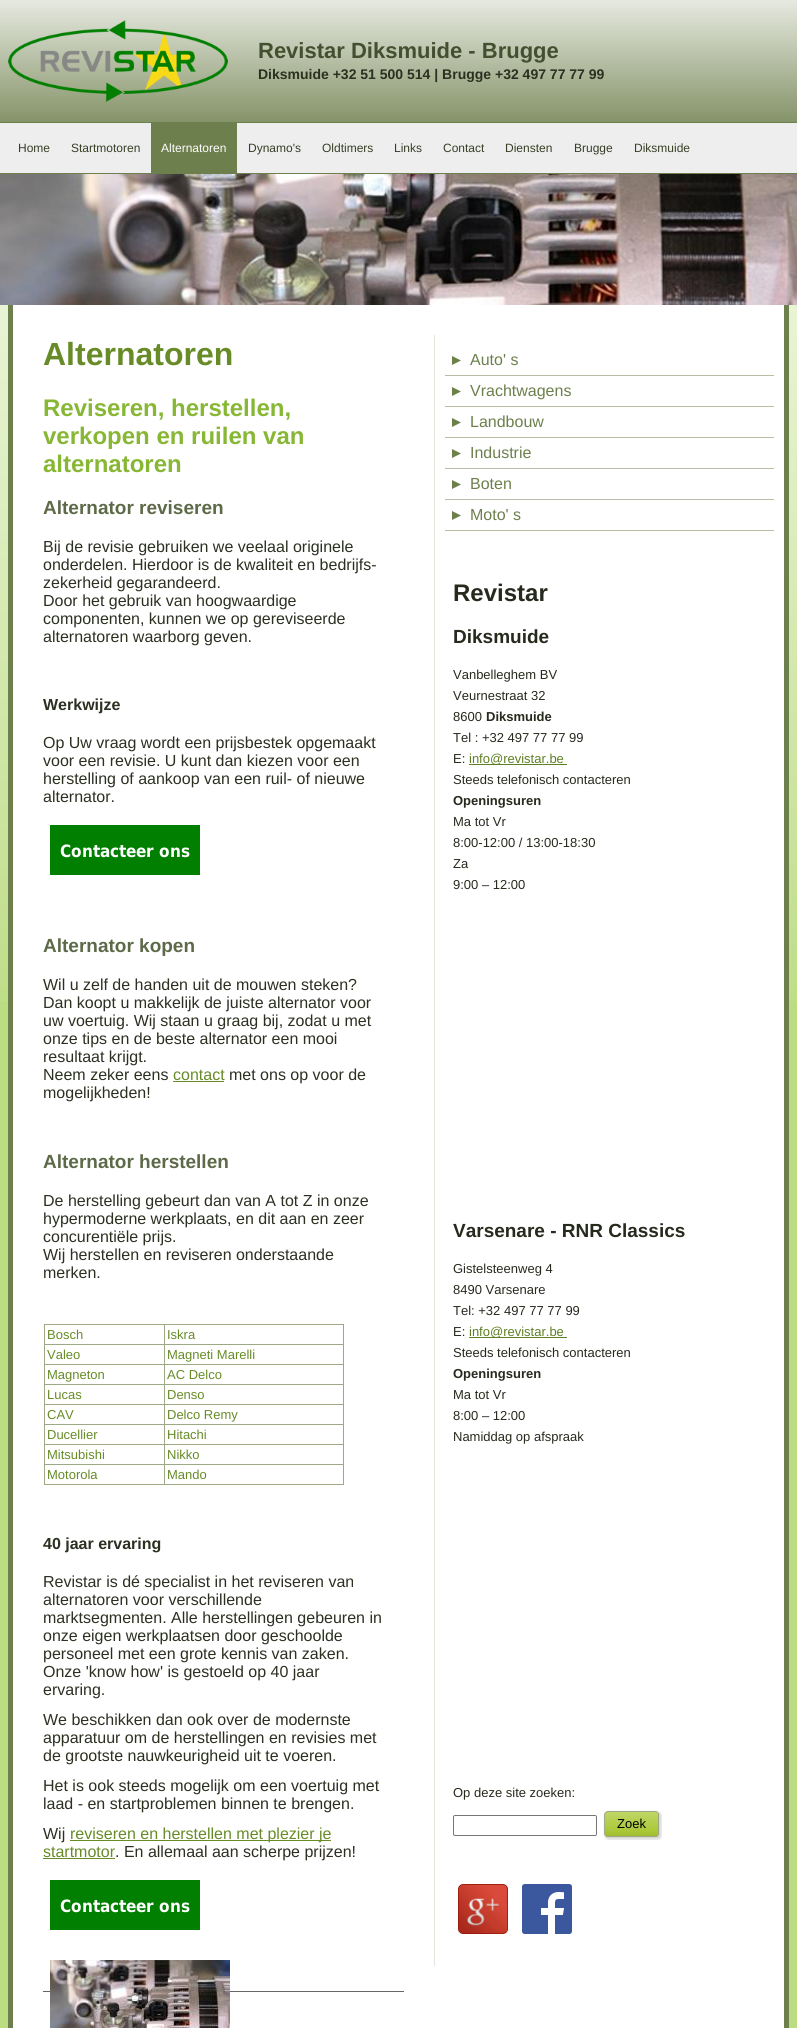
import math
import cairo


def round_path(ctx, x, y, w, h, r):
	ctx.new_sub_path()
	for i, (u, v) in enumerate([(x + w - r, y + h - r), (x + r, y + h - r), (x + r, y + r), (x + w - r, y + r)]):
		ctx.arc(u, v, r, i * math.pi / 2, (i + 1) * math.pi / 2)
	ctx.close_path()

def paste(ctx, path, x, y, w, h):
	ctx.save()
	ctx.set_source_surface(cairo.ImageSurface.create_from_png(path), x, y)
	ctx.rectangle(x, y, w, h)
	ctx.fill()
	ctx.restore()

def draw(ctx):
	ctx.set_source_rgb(0.737, 0.863, 0.518)
	ctx.paint()
	paste(ctx, 'media/1.png', 0, 305, 797, 696)
	gradient = cairo.LinearGradient(399, 0, 399, 122)
	gradient.add_color_stop_rgba(0, 0.902, 0.914, 0.878, 1)
	gradient.add_color_stop_rgba(1, 0.525, 0.58, 0.412, 1)
	ctx.set_source(gradient)
	ctx.rectangle(0, 0, 797, 122)
	ctx.fill()
	paste(ctx, 'media/2.png', 8, 20, 220, 82)
	ctx.select_font_face('Liberation Sans', cairo.FONT_SLANT_NORMAL, cairo.FONT_WEIGHT_BOLD)
	ctx.set_font_size(22)
	ctx.set_source_rgb(0.267, 0.31, 0.184)
	ctx.move_to(258, 58)
	ctx.show_text('Revistar Diksmuide - Brugge')
	ctx.set_font_size(14)
	ctx.set_source_rgb(0.169, 0.188, 0.129)
	ctx.move_to(258, 79)
	ctx.show_text('Diksmuide +32 51 500 514 | Brugge +32 497 77 77 99')
	ctx.set_source_rgb(0.933, 0.933, 0.933)
	ctx.rectangle(0, 123, 797, 50)
	ctx.fill()
	ctx.set_source_rgb(0.427, 0.498, 0.298)
	ctx.rectangle(0, 122, 797, 1)
	ctx.rectangle(0, 173, 797, 1)
	ctx.fill()
	ctx.select_font_face('Liberation Sans')
	ctx.set_font_size(12)
	ctx.set_source_rgb(0.212, 0.247, 0.149)
	ctx.move_to(18, 152)
	ctx.show_text('Home')
	ctx.move_to(71, 152)
	ctx.show_text('Startmotoren')
	ctx.set_source_rgb(0.427, 0.498, 0.298)
	ctx.rectangle(151, 123, 86, 50)
	ctx.fill()
	ctx.set_source_rgb(1, 1, 1)
	ctx.move_to(161, 152)
	ctx.show_text('Alternatoren')
	ctx.set_source_rgb(0.212, 0.247, 0.149)
	for x, y, s in [
		(248, 152, 'Dynamo\'s'),
		(322, 152, 'Oldtimers'),
		(394, 152, 'Links'),
		(443, 152, 'Contact'),
		(505, 152, 'Diensten'),
		(574, 152, 'Brugge'),
		(634, 152, 'Diksmuide'),
	]:
		ctx.move_to(x, y)
		ctx.show_text(s)
	paste(ctx, 'media/3.png', 0, 174, 797, 131)
	ctx.set_source_rgb(1, 1, 1)
	ctx.rectangle(13, 305, 771, 1723)
	ctx.fill()
	ctx.set_source_rgb(0.427, 0.498, 0.298)
	ctx.rectangle(784, 305, 5, 1723)
	ctx.rectangle(8, 305, 5, 1723)
	ctx.fill()
	ctx.select_font_face('Liberation Sans', cairo.FONT_SLANT_NORMAL, cairo.FONT_WEIGHT_BOLD)
	ctx.set_font_size(32)
	ctx.set_source_rgb(0.404, 0.545, 0.153)
	ctx.move_to(43, 365)
	ctx.show_text('Alternatoren')
	ctx.set_font_size(24)
	ctx.set_source_rgb(0.529, 0.718, 0.204)
	for x, y, s in [
		(43, 416, 'Reviseren, herstellen,'),
		(43, 444, 'verkopen en ruilen van'),
		(43, 472, 'alternatoren'),
	]:
		ctx.move_to(x, y)
		ctx.show_text(s)
	ctx.set_font_size(19)
	ctx.set_source_rgb(0.369, 0.412, 0.286)
	ctx.move_to(43, 514)
	ctx.show_text('Alternator reviseren')
	ctx.select_font_face('Liberation Sans')
	ctx.set_font_size(16)
	ctx.set_source_rgb(0.169, 0.188, 0.129)
	for x, y, s in [
		(43, 552, 'Bij de revisie gebruiken we veelaal originele'),
		(43, 570, 'onderdelen. Hierdoor is de kwaliteit en bedrijfs-'),
		(43, 588, 'zekerheid gegarandeerd.'),
		(43, 606, 'Door het gebruik van hoogwaardige'),
		(43, 624, 'componenten, kunnen we op gereviseerde'),
		(43, 642, 'alternatoren waarborg geven.'),
	]:
		ctx.move_to(x, y)
		ctx.show_text(s)
	ctx.select_font_face('Liberation Sans', cairo.FONT_SLANT_NORMAL, cairo.FONT_WEIGHT_BOLD)
	ctx.move_to(43, 710)
	ctx.show_text('Werkwijze')
	ctx.select_font_face('Liberation Sans')
	for x, y, s in [
		(43, 748, 'Op Uw vraag wordt een prijsbestek opgemaakt'),
		(43, 766, 'voor een revisie. U kunt dan kiezen voor een'),
		(43, 784, 'herstelling of aankoop van een ruil- of nieuwe'),
		(43, 802, 'alternator.'),
	]:
		ctx.move_to(x, y)
		ctx.show_text(s)
	paste(ctx, 'media/4.png', 50, 825, 150, 50)
	ctx.select_font_face('Liberation Sans', cairo.FONT_SLANT_NORMAL, cairo.FONT_WEIGHT_BOLD)
	ctx.set_font_size(19)
	ctx.set_source_rgb(0.369, 0.412, 0.286)
	ctx.move_to(43, 952)
	ctx.show_text('Alternator kopen')
	ctx.select_font_face('Liberation Sans')
	ctx.set_font_size(16)
	ctx.set_source_rgb(0.169, 0.188, 0.129)
	for x, y, s in [
		(43, 990, 'Wil u zelf de handen uit de mouwen steken?'),
		(43, 1008, 'Dan koopt u makkelijk de juiste alternator voor'),
		(43, 1026, 'uw voertuig. Wij staan u graag bij, zodat u met'),
		(43, 1044, 'onze tips en de beste alternator een mooi'),
		(43, 1062, 'resultaat krijgt.'),
		(43, 1080, 'Neem zeker eens'),
	]:
		ctx.move_to(x, y)
		ctx.show_text(s)
	ctx.set_source_rgb(0.404, 0.545, 0.153)
	ctx.move_to(173, 1080)
	ctx.show_text('contact')
	ctx.rectangle(173, 1081, 51, 1)
	ctx.fill()
	ctx.set_source_rgb(0.169, 0.188, 0.129)
	ctx.move_to(229, 1080)
	ctx.show_text('met ons op voor de')
	ctx.move_to(43, 1098)
	ctx.show_text('mogelijkheden!')
	ctx.select_font_face('Liberation Sans', cairo.FONT_SLANT_NORMAL, cairo.FONT_WEIGHT_BOLD)
	ctx.set_font_size(19)
	ctx.set_source_rgb(0.369, 0.412, 0.286)
	ctx.move_to(43, 1168)
	ctx.show_text('Alternator herstellen')
	ctx.select_font_face('Liberation Sans')
	ctx.set_font_size(16)
	ctx.set_source_rgb(0.169, 0.188, 0.129)
	for x, y, s in [
		(43, 1206, 'De herstelling gebeurt dan van A tot Z in onze'),
		(43, 1224, 'hypermoderne werkplaats, en dit aan en zeer'),
		(43, 1242, 'concurentiële prijs.'),
		(43, 1260, 'Wij herstellen en reviseren onderstaande'),
		(43, 1278, 'merken.'),
	]:
		ctx.move_to(x, y)
		ctx.show_text(s)
	ctx.set_source_rgb(0.612, 0.663, 0.518)
	ctx.rectangle(164, 1324, 180, 1)
	ctx.rectangle(164, 1344, 180, 1)
	ctx.rectangle(164, 1364, 180, 1)
	ctx.rectangle(164, 1384, 180, 1)
	ctx.rectangle(164, 1404, 180, 1)
	ctx.rectangle(164, 1424, 180, 1)
	ctx.rectangle(164, 1444, 180, 1)
	ctx.rectangle(164, 1464, 180, 1)
	ctx.rectangle(343, 1464, 1, 21)
	ctx.rectangle(164, 1484, 180, 1)
	ctx.rectangle(164, 1464, 1, 21)
	ctx.rectangle(44, 1464, 121, 1)
	ctx.rectangle(164, 1444, 1, 21)
	ctx.rectangle(44, 1444, 121, 1)
	ctx.rectangle(164, 1424, 1, 21)
	ctx.rectangle(44, 1424, 121, 1)
	ctx.rectangle(164, 1404, 1, 21)
	ctx.rectangle(44, 1404, 121, 1)
	ctx.rectangle(164, 1384, 1, 21)
	ctx.rectangle(44, 1384, 121, 1)
	ctx.rectangle(164, 1364, 1, 21)
	ctx.rectangle(44, 1364, 121, 1)
	ctx.rectangle(164, 1344, 1, 21)
	ctx.rectangle(44, 1344, 121, 1)
	ctx.rectangle(164, 1324, 1, 21)
	ctx.rectangle(44, 1324, 121, 1)
	ctx.rectangle(44, 1484, 121, 1)
	ctx.rectangle(44, 1464, 1, 21)
	ctx.rectangle(44, 1444, 1, 21)
	ctx.rectangle(44, 1424, 1, 21)
	ctx.rectangle(44, 1404, 1, 21)
	ctx.rectangle(44, 1384, 1, 21)
	ctx.rectangle(44, 1364, 1, 21)
	ctx.rectangle(44, 1344, 1, 21)
	ctx.rectangle(44, 1324, 1, 21)
	ctx.fill()
	ctx.set_font_size(13)
	ctx.set_source_rgb(0.404, 0.545, 0.153)
	ctx.move_to(47, 1339)
	ctx.show_text('Bosch')
	ctx.set_source_rgb(0.612, 0.663, 0.518)
	ctx.rectangle(343, 1444, 1, 21)
	ctx.rectangle(343, 1424, 1, 21)
	ctx.rectangle(343, 1404, 1, 21)
	ctx.rectangle(343, 1384, 1, 21)
	ctx.rectangle(343, 1364, 1, 21)
	ctx.rectangle(343, 1344, 1, 21)
	ctx.rectangle(343, 1324, 1, 21)
	ctx.fill()
	ctx.set_source_rgb(0.404, 0.545, 0.153)
	for x, y, s in [
		(167, 1339, 'Iskra'),
		(47, 1359, 'Valeo'),
		(167, 1359, 'Magneti Marelli'),
		(47, 1379, 'Magneton'),
		(167, 1379, 'AC Delco'),
		(47, 1399, 'Lucas'),
		(167, 1399, 'Denso'),
		(47, 1419, 'CAV'),
		(167, 1419, 'Delco Remy'),
		(47, 1439, 'Ducellier'),
		(167, 1439, 'Hitachi'),
		(47, 1459, 'Mitsubishi'),
		(167, 1459, 'Nikko'),
		(47, 1479, 'Motorola'),
		(167, 1479, 'Mando'),
	]:
		ctx.move_to(x, y)
		ctx.show_text(s)
	ctx.select_font_face('Liberation Sans', cairo.FONT_SLANT_NORMAL, cairo.FONT_WEIGHT_BOLD)
	ctx.set_font_size(16)
	ctx.set_source_rgb(0.169, 0.188, 0.129)
	ctx.move_to(43, 1549)
	ctx.show_text('40 jaar ervaring')
	ctx.select_font_face('Liberation Sans')
	for x, y, s in [
		(43, 1587, 'Revistar is dé specialist in het reviseren van'),
		(43, 1605, 'alternatoren voor verschillende'),
		(43, 1623, 'marktsegmenten. Alle herstellingen gebeuren in'),
		(43, 1641, 'onze eigen werkplaatsen door geschoolde'),
		(43, 1659, 'personeel met een grote kennis van zaken.'),
		(43, 1677, 'Onze \'know how\' is gestoeld op 40 jaar'),
		(43, 1695, 'ervaring.'),
		(43, 1725, 'We beschikken dan ook over de modernste'),
		(43, 1743, 'apparatuur om de herstellingen en revisies met'),
		(43, 1761, 'de grootste nauwkeurigheid uit te voeren.'),
		(43, 1791, 'Het is ook steeds mogelijk om een voertuig met'),
		(43, 1809, 'laad - en startproblemen binnen te brengen.'),
		(43, 1839, 'Wij'),
	]:
		ctx.move_to(x, y)
		ctx.show_text(s)
	ctx.set_source_rgb(0.404, 0.545, 0.153)
	ctx.rectangle(70, 1840, 261, 1)
	ctx.fill()
	ctx.move_to(70, 1839)
	ctx.show_text('reviseren en herstellen met plezier je')
	ctx.move_to(43, 1857)
	ctx.show_text('startmotor')
	ctx.set_source_rgb(0.169, 0.188, 0.129)
	ctx.move_to(115, 1857)
	ctx.show_text('. En allemaal aan scherpe prijzen!')
	ctx.set_source_rgb(0.404, 0.545, 0.153)
	ctx.rectangle(43, 1858, 72, 1)
	ctx.fill()
	paste(ctx, 'media/4.png', 50, 1880, 150, 50)
	ctx.set_source_rgb(0.4, 0.4, 0.4)
	ctx.rectangle(43, 1991, 361, 1)
	ctx.fill()
	paste(ctx, 'media/5.png', 50, 1960, 180, 68)
	ctx.set_source_rgb(0.886, 0.898, 0.859)
	ctx.rectangle(434, 335, 1, 1631)
	ctx.fill()
	ctx.set_source_rgb(0.714, 0.749, 0.651)
	ctx.rectangle(445, 375, 329, 1)
	ctx.fill()
	paste(ctx, 'media/6.png', 452, 356, 9, 9)
	ctx.set_source_rgb(0.427, 0.498, 0.298)
	ctx.move_to(470, 365)
	ctx.show_text('Auto\' s')
	ctx.set_source_rgb(0.714, 0.749, 0.651)
	ctx.rectangle(445, 406, 329, 1)
	ctx.fill()
	paste(ctx, 'media/6.png', 452, 387, 9, 9)
	ctx.set_source_rgb(0.427, 0.498, 0.298)
	ctx.move_to(470, 396)
	ctx.show_text('Vrachtwagens')
	ctx.set_source_rgb(0.714, 0.749, 0.651)
	ctx.rectangle(445, 437, 329, 1)
	ctx.fill()
	paste(ctx, 'media/6.png', 452, 418, 9, 9)
	ctx.set_source_rgb(0.427, 0.498, 0.298)
	ctx.move_to(470, 427)
	ctx.show_text('Landbouw')
	ctx.set_source_rgb(0.714, 0.749, 0.651)
	ctx.rectangle(445, 468, 329, 1)
	ctx.fill()
	paste(ctx, 'media/6.png', 452, 449, 9, 9)
	ctx.set_source_rgb(0.427, 0.498, 0.298)
	ctx.move_to(470, 458)
	ctx.show_text('Industrie')
	ctx.set_source_rgb(0.714, 0.749, 0.651)
	ctx.rectangle(445, 499, 329, 1)
	ctx.fill()
	paste(ctx, 'media/6.png', 452, 480, 9, 9)
	ctx.set_source_rgb(0.427, 0.498, 0.298)
	ctx.move_to(470, 489)
	ctx.show_text('Boten')
	ctx.set_source_rgb(0.714, 0.749, 0.651)
	ctx.rectangle(445, 530, 329, 1)
	ctx.fill()
	paste(ctx, 'media/6.png', 452, 511, 9, 9)
	ctx.set_source_rgb(0.427, 0.498, 0.298)
	ctx.move_to(470, 520)
	ctx.show_text('Moto\' s')
	ctx.select_font_face('Liberation Sans', cairo.FONT_SLANT_NORMAL, cairo.FONT_WEIGHT_BOLD)
	ctx.set_font_size(24)
	ctx.set_source_rgb(0.149, 0.165, 0.114)
	ctx.move_to(453, 601)
	ctx.show_text('Revistar')
	ctx.set_font_size(19)
	ctx.move_to(453, 643)
	ctx.show_text('Diksmuide')
	ctx.select_font_face('Liberation Sans')
	ctx.set_font_size(13)
	for x, y, s in [
		(453, 679, 'Vanbelleghem BV'),
		(453, 700, 'Veurnestraat 32'),
		(453, 721, '8600'),
	]:
		ctx.move_to(x, y)
		ctx.show_text(s)
	ctx.select_font_face('Liberation Sans', cairo.FONT_SLANT_NORMAL, cairo.FONT_WEIGHT_BOLD)
	ctx.move_to(486, 721)
	ctx.show_text('Diksmuide')
	ctx.select_font_face('Liberation Sans')
	ctx.move_to(453, 742)
	ctx.show_text('Tel : +32 497 77 77 99')
	ctx.move_to(453, 763)
	ctx.show_text('E:')
	ctx.set_source_rgb(0.369, 0.498, 0.141)
	ctx.rectangle(469, 764, 98, 1)
	ctx.fill()
	ctx.move_to(469, 763)
	ctx.show_text('info@revistar.be')
	ctx.set_source_rgb(0.149, 0.165, 0.114)
	ctx.move_to(453, 784)
	ctx.show_text('Steeds telefonisch contacteren')
	ctx.select_font_face('Liberation Sans', cairo.FONT_SLANT_NORMAL, cairo.FONT_WEIGHT_BOLD)
	ctx.move_to(453, 805)
	ctx.show_text('Openingsuren')
	ctx.select_font_face('Liberation Sans')
	for x, y, s in [
		(453, 826, 'Ma tot Vr'),
		(453, 847, '8:00-12:00 / 13:00-18:30'),
		(453, 868, 'Za'),
		(453, 889, '9:00 – 12:00'),
	]:
		ctx.move_to(x, y)
		ctx.show_text(s)
	ctx.select_font_face('Liberation Sans', cairo.FONT_SLANT_NORMAL, cairo.FONT_WEIGHT_BOLD)
	ctx.set_font_size(19)
	ctx.move_to(453, 1237)
	ctx.show_text('Varsenare - RNR Classics')
	ctx.select_font_face('Liberation Sans')
	ctx.set_font_size(13)
	for x, y, s in [
		(453, 1273, 'Gistelsteenweg 4'),
		(453, 1294, '8490 Varsenare'),
		(453, 1315, 'Tel: +32 497 77 77 99'),
		(453, 1336, 'E:'),
	]:
		ctx.move_to(x, y)
		ctx.show_text(s)
	ctx.set_source_rgb(0.369, 0.498, 0.141)
	ctx.rectangle(469, 1337, 98, 1)
	ctx.fill()
	ctx.move_to(469, 1336)
	ctx.show_text('info@revistar.be')
	ctx.set_source_rgb(0.149, 0.165, 0.114)
	ctx.move_to(453, 1357)
	ctx.show_text('Steeds telefonisch contacteren')
	ctx.select_font_face('Liberation Sans', cairo.FONT_SLANT_NORMAL, cairo.FONT_WEIGHT_BOLD)
	ctx.move_to(453, 1378)
	ctx.show_text('Openingsuren')
	ctx.select_font_face('Liberation Sans')
	for x, y, s in [
		(453, 1399, 'Ma tot Vr'),
		(453, 1420, '8:00 – 12:00'),
		(453, 1441, 'Namiddag op afspraak'),
		(453, 1797, 'Op deze site zoeken:'),
	]:
		ctx.move_to(x, y)
		ctx.show_text(s)
	round_path(ctx, 453.5, 1815.5, 143, 20, 1.5)
	ctx.set_source_rgb(0.463, 0.463, 0.463)
	ctx.set_line_width(1)
	ctx.stroke()
	paste(ctx, 'media/7.png', 603, 1810, 49, 30)
	paste(ctx, 'media/8.png', 652, 1810, 10, 30)
	ctx.set_source_rgb(0, 0, 0)
	ctx.move_to(617, 1828)
	ctx.show_text('Zoek')
	paste(ctx, 'media/9.png', 458, 1884, 50, 50)
	paste(ctx, 'media/10.png', 522, 1884, 50, 50)


surface = cairo.ImageSurface(cairo.FORMAT_RGB24, 797, 2028)
ctx = cairo.Context(surface)
options = cairo.FontOptions()
options.set_hint_metrics(cairo.HINT_METRICS_OFF)
options.set_hint_style(cairo.HINT_STYLE_NONE)
ctx.set_font_options(options)
ctx.set_miter_limit(4)
draw(ctx)
surface.write_to_png('image.png')
